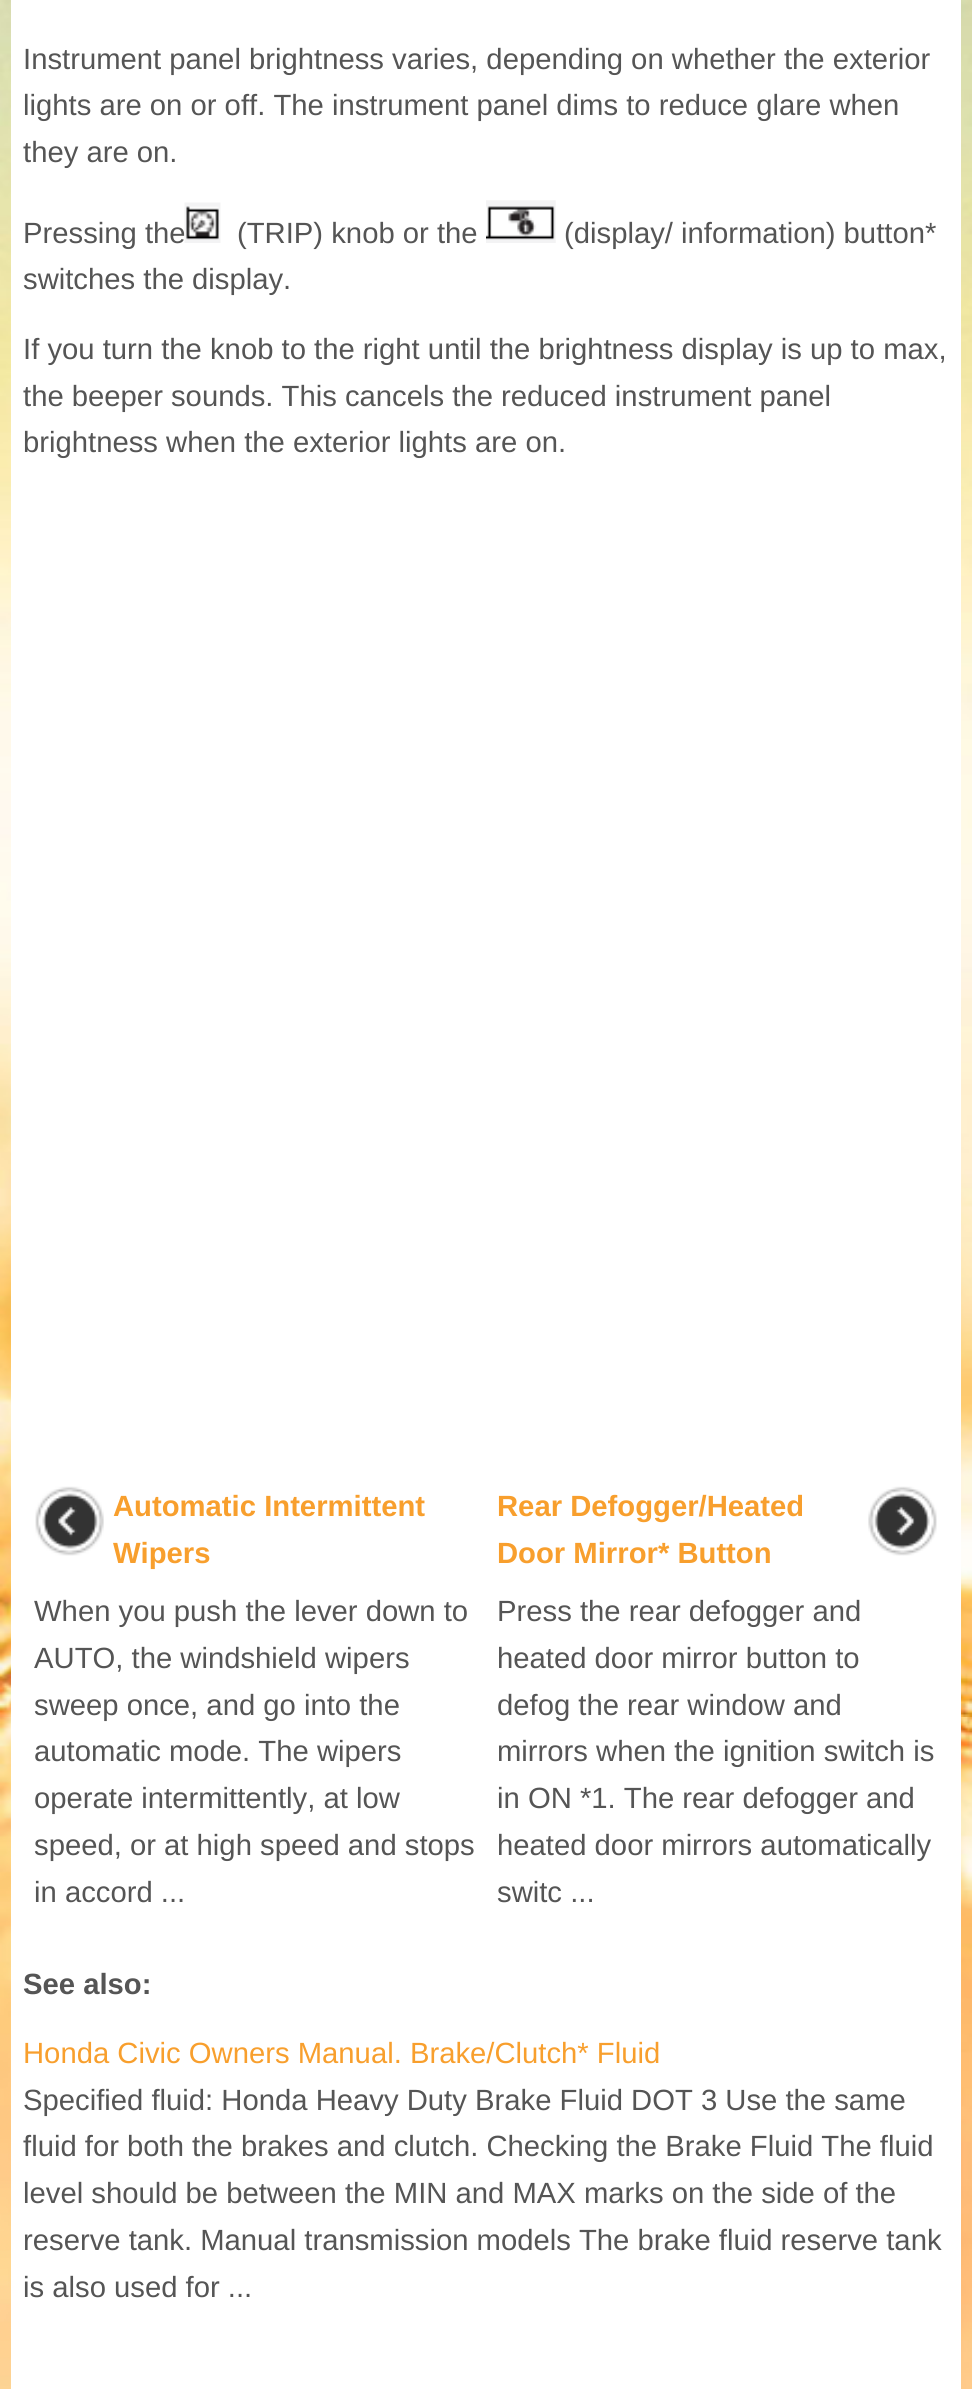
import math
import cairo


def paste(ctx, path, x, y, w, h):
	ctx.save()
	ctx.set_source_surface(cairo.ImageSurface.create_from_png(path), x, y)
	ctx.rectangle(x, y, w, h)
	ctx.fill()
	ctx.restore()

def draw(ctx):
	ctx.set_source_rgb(1, 1, 1)
	ctx.paint()
	paste(ctx, 'media/1.png', 0, 0, 972, 2389)
	ctx.set_source_rgb(1, 1, 1)
	ctx.rectangle(11, 0, 950, 2389)
	ctx.fill()
	ctx.select_font_face('Liberation Sans')
	ctx.set_font_size(29.25)
	ctx.set_source_rgb(0.333, 0.333, 0.333)
	for x, y, s in [
		(23, 69, 'Instrument panel brightness varies, depending on whether the exterior'),
		(23, 115, 'lights are on or off. The instrument panel dims to reduce glare when'),
		(23, 162, 'they are on.'),
		(23, 243, 'Pressing the'),
	]:
		ctx.move_to(x, y)
		ctx.show_text(s)
	paste(ctx, 'media/2.png', 184, 202, 37, 41)
	ctx.move_to(237, 243)
	ctx.show_text('(TRIP) knob or the')
	paste(ctx, 'media/3.png', 486, 200, 70, 43)
	for x, y, s in [
		(564, 243, '(display/ information) button*'),
		(23, 289, 'switches the display.'),
		(23, 359, 'If you turn the knob to the right until the brightness display is up to max,'),
		(23, 406, 'the beeper sounds. This cancels the reduced instrument panel'),
		(23, 452, 'brightness when the exterior lights are on.'),
	]:
		ctx.move_to(x, y)
		ctx.show_text(s)
	paste(ctx, 'media/4.png', 35, 1486, 69, 70)
	ctx.select_font_face('Liberation Sans', cairo.FONT_SLANT_NORMAL, cairo.FONT_WEIGHT_BOLD)
	ctx.set_source_rgb(0.969, 0.624, 0.176)
	ctx.move_to(113, 1516)
	ctx.show_text('Automatic Intermittent')
	ctx.move_to(113, 1563)
	ctx.show_text('Wipers')
	ctx.select_font_face('Liberation Sans')
	ctx.set_source_rgb(0.333, 0.333, 0.333)
	for x, y, s in [
		(34, 1621, 'When you push the lever down to'),
		(34, 1668, 'AUTO, the windshield wipers'),
		(34, 1715, 'sweep once, and go into the'),
		(34, 1761, 'automatic mode. The wipers'),
		(34, 1808, 'operate intermittently, at low'),
		(34, 1855, 'speed, or at high speed and stops'),
		(34, 1902, 'in accord ...'),
	]:
		ctx.move_to(x, y)
		ctx.show_text(s)
	ctx.select_font_face('Liberation Sans', cairo.FONT_SLANT_NORMAL, cairo.FONT_WEIGHT_BOLD)
	ctx.set_source_rgb(0.969, 0.624, 0.176)
	ctx.move_to(497, 1516)
	ctx.show_text('Rear Defogger/Heated')
	paste(ctx, 'media/5.png', 868, 1486, 69, 70)
	ctx.move_to(497, 1563)
	ctx.show_text('Door Mirror* Button')
	ctx.select_font_face('Liberation Sans')
	ctx.set_source_rgb(0.333, 0.333, 0.333)
	for x, y, s in [
		(497, 1621, 'Press the rear defogger and'),
		(497, 1668, 'heated door mirror button to'),
		(497, 1715, 'defog the rear window and'),
		(497, 1761, 'mirrors when the ignition switch is'),
		(497, 1808, 'in ON *1. The rear defogger and'),
		(497, 1855, 'heated door mirrors automatically'),
		(497, 1902, 'switc ...'),
	]:
		ctx.move_to(x, y)
		ctx.show_text(s)
	ctx.select_font_face('Liberation Sans', cairo.FONT_SLANT_NORMAL, cairo.FONT_WEIGHT_BOLD)
	ctx.move_to(23, 1994)
	ctx.show_text('See also:')
	ctx.select_font_face('Liberation Sans')
	ctx.set_source_rgb(0.969, 0.624, 0.176)
	ctx.move_to(23, 2063)
	ctx.show_text('Honda Civic Owners Manual. Brake/Clutch* Fluid')
	ctx.set_source_rgb(0.333, 0.333, 0.333)
	for x, y, s in [
		(23, 2110, 'Specified fluid: Honda Heavy Duty Brake Fluid DOT 3 Use the same'),
		(23, 2156, 'fluid for both the brakes and clutch. Checking the Brake Fluid The fluid'),
		(23, 2203, 'level should be between the MIN and MAX marks on the side of the'),
		(23, 2250, 'reserve tank. Manual transmission models The brake fluid reserve tank'),
		(23, 2297, 'is also used for ...'),
	]:
		ctx.move_to(x, y)
		ctx.show_text(s)


surface = cairo.ImageSurface(cairo.FORMAT_RGB24, 972, 2389)
ctx = cairo.Context(surface)
options = cairo.FontOptions()
options.set_hint_metrics(cairo.HINT_METRICS_OFF)
options.set_hint_style(cairo.HINT_STYLE_NONE)
ctx.set_font_options(options)
ctx.set_miter_limit(4)
draw(ctx)
surface.write_to_png('image.png')
